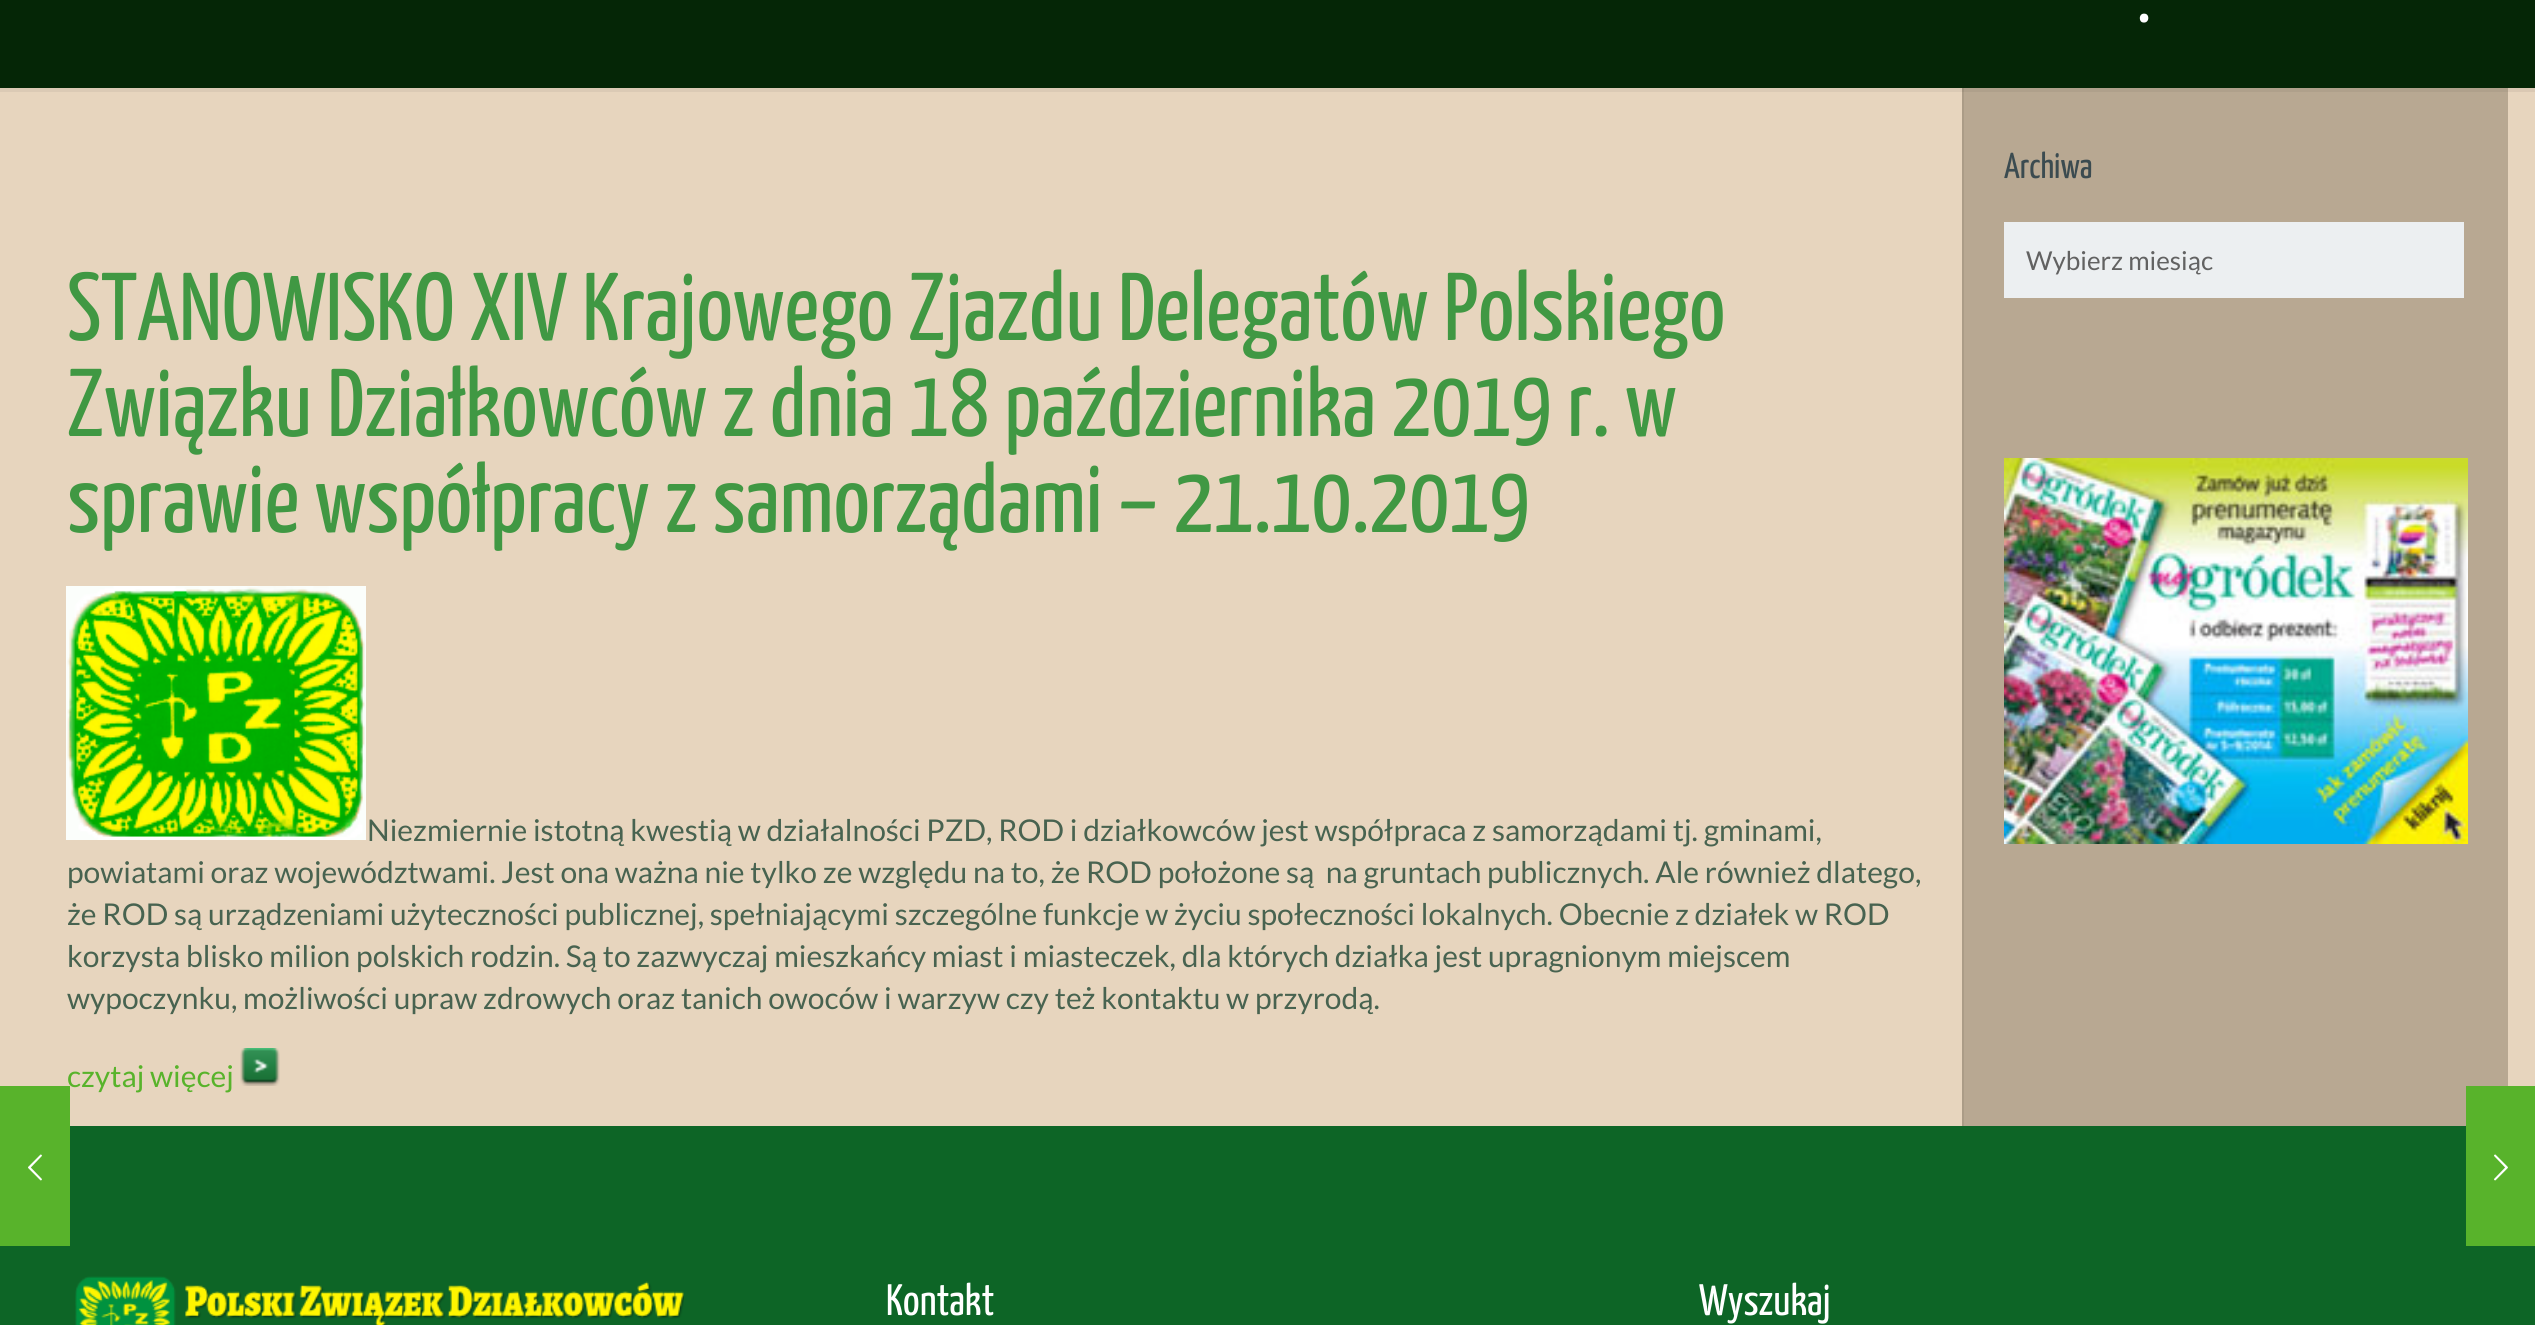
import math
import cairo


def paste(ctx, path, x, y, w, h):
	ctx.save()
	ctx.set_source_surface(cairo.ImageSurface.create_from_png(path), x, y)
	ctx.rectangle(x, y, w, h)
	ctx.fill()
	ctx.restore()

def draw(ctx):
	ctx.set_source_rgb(0.906, 0.835, 0.745)
	ctx.paint()
	ctx.set_source_rgb(0.859, 0.792, 0.71)
	ctx.rectangle(0, 88, 1962, 4)
	ctx.fill()
	ctx.set_source_rgb(0.855, 0.784, 0.702)
	ctx.rectangle(2508, 88, 27, 4)
	ctx.fill()
	ctx.set_source_rgb(0.051, 0.396, 0.149)
	ctx.rectangle(0, 1126, 2535, 199)
	ctx.fill()
	ctx.set_source_rgb(0.345, 0.702, 0.169)
	ctx.rectangle(0, 1086, 70, 160)
	ctx.fill()
	paste(ctx, 'media/1.png', 28, 1154, 14, 27)
	ctx.set_source_rgb(0.02, 0.149, 0.024)
	ctx.rectangle(0, 0, 2535, 88)
	ctx.fill()
	ctx.select_font_face('Yanone Kaffeesatz Light')
	ctx.set_font_size(110)
	ctx.set_source_rgb(1, 1, 1)
	ctx.move_to(2134, 22)
	ctx.show_text('.')
	ctx.set_source_rgb(0.722, 0.659, 0.573)
	ctx.rectangle(1964, 92, 544, 1034)
	ctx.fill()
	ctx.set_source_rgb(0.686, 0.627, 0.545)
	ctx.rectangle(1964, 88, 544, 4)
	ctx.fill()
	ctx.set_source_rgb(0.671, 0.612, 0.529)
	ctx.rectangle(1962, 88, 2, 1038)
	ctx.fill()
	ctx.set_source_rgb(0.635, 0.58, 0.502)
	ctx.rectangle(1962, 88, 2, 4)
	ctx.fill()
	ctx.select_font_face('Yanone Kaffeesatz')
	ctx.set_font_size(36)
	ctx.set_source_rgb(0.231, 0.294, 0.314)
	ctx.move_to(2004, 178)
	ctx.show_text('Archiwa')
	ctx.set_source_rgb(0.925, 0.937, 0.945)
	ctx.rectangle(2004, 222, 460, 76)
	ctx.fill()
	ctx.select_font_face('Lato')
	ctx.set_font_size(26)
	ctx.set_source_rgb(0.384, 0.384, 0.384)
	ctx.move_to(2026, 270)
	ctx.show_text('Wybierz miesiąc')
	paste(ctx, 'media/2.png', 2004, 458, 464, 386)
	ctx.select_font_face('Yanone Kaffeesatz')
	ctx.set_font_size(96)
	ctx.set_source_rgb(0.251, 0.596, 0.263)
	for x, y, s in [
		(67, 340, 'STANOWISKO XIV Krajowego Zjazdu Delegatów Polskiego'),
		(67, 436, 'Związku Działkowców z dnia 18 października 2019 r. w'),
		(67, 532, 'sprawie współpracy z samorządami – 21.10.2019'),
	]:
		ctx.move_to(x, y)
		ctx.show_text(s)
	paste(ctx, 'media/3.png', 66, 586, 300, 254)
	ctx.select_font_face('Lato')
	ctx.set_font_size(30)
	ctx.set_source_rgb(0.282, 0.388, 0.314)
	for x, y, s in [
		(367, 841, 'Niezmiernie istotną kwestią w działalności PZD, ROD i działkowców jest współpraca z samorządami tj. gminami,'),
		(67, 883, 'powiatami oraz województwami. Jest ona ważna nie tylko ze względu na to, że ROD położone są  na gruntach publicznych. Ale również dlatego,'),
		(67, 925, 'że ROD są urządzeniami użyteczności publicznej, spełniającymi szczególne funkcje w życiu społeczności lokalnych. Obecnie z działek w ROD'),
		(67, 967, 'korzysta blisko milion polskich rodzin. Są to zazwyczaj mieszkańcy miast i miasteczek, dla których działka jest upragnionym miejscem'),
		(67, 1009, 'wypoczynku, możliwości upraw zdrowych oraz tanich owoców i warzyw czy też kontaktu w przyrodą.'),
	]:
		ctx.move_to(x, y)
		ctx.show_text(s)
	ctx.set_source_rgb(0.345, 0.702, 0.169)
	ctx.move_to(67, 1087)
	ctx.show_text('czytaj więcej')
	paste(ctx, 'media/4.png', 240, 1048, 40, 38)
	paste(ctx, 'media/5.png', 75, 1276, 609, 49)
	ctx.select_font_face('Yanone Kaffeesatz')
	ctx.set_font_size(44)
	ctx.set_source_rgb(1, 1, 1)
	ctx.move_to(886, 1315)
	ctx.show_text('Kontakt')
	ctx.move_to(1699, 1315)
	ctx.show_text('Wyszukaj')
	ctx.set_source_rgb(0.345, 0.702, 0.169)
	ctx.rectangle(2466, 1086, 69, 160)
	ctx.fill()
	paste(ctx, 'media/6.png', 2494, 1154, 14, 27)


surface = cairo.ImageSurface(cairo.FORMAT_RGB24, 2535, 1325)
ctx = cairo.Context(surface)
options = cairo.FontOptions()
options.set_hint_metrics(cairo.HINT_METRICS_OFF)
options.set_hint_style(cairo.HINT_STYLE_NONE)
ctx.set_font_options(options)
ctx.set_miter_limit(4)
draw(ctx)
surface.write_to_png('image.png')
